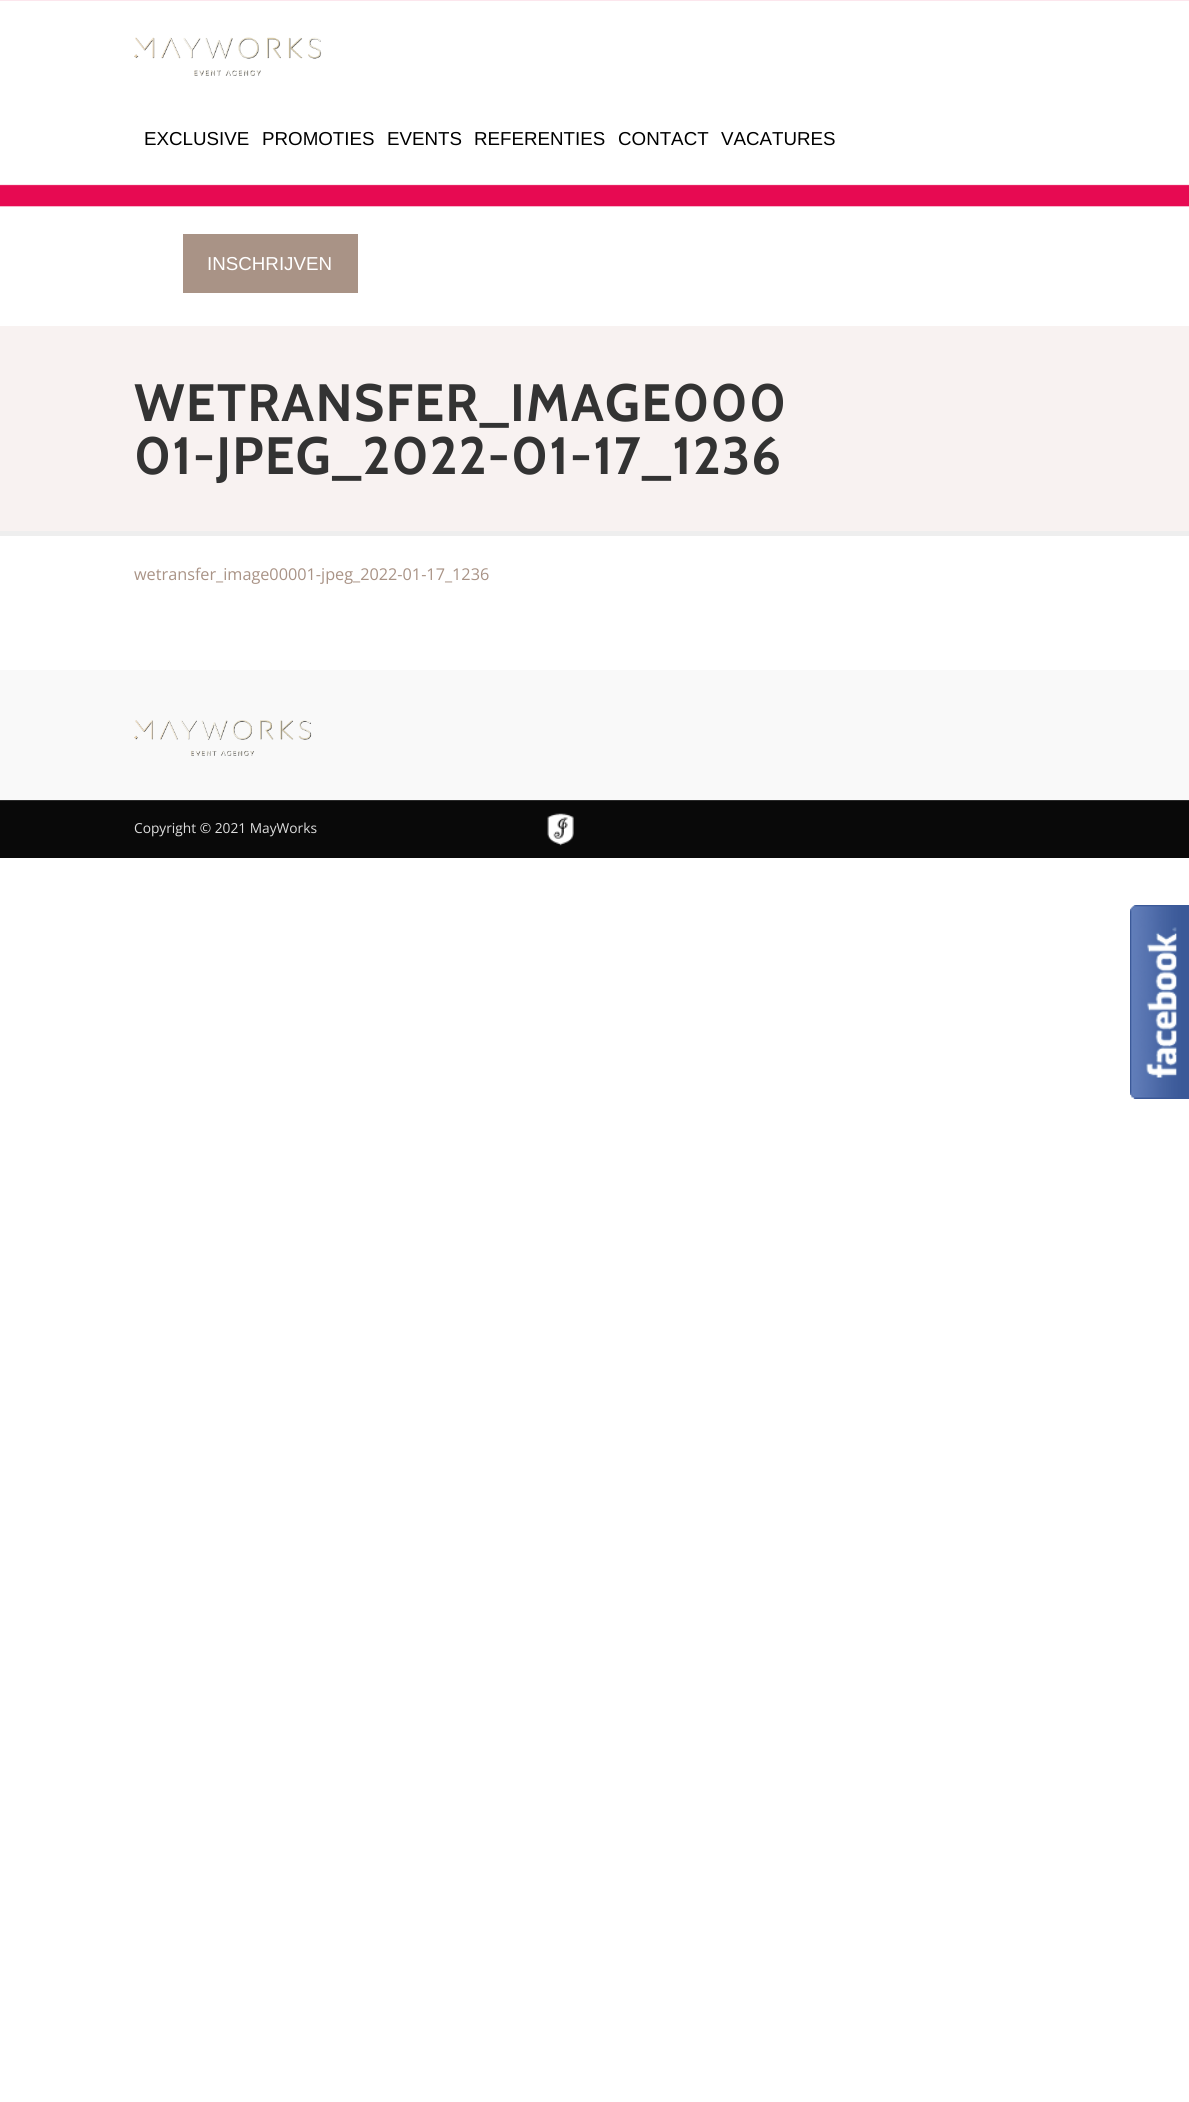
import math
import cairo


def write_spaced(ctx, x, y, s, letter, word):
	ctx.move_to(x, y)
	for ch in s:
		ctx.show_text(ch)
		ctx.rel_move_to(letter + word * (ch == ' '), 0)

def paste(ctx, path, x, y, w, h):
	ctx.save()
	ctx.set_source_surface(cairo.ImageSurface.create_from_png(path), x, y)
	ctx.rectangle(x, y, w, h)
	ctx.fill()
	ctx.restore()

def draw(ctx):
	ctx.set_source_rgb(1, 1, 1)
	ctx.paint()
	paste(ctx, 'media/1.png', 0, 0, 1189, 207)
	paste(ctx, 'media/2.png', 134, 37, 188, 39)
	ctx.select_font_face('Liberation Sans')
	ctx.set_font_size(18.75)
	ctx.set_source_rgb(0, 0, 0)
	for x, y, s in [
		(144, 145, 'EXCLUSIVE'),
		(262, 145, 'PROMOTIES'),
		(387, 145, 'EVENTS'),
		(474, 145, 'REFERENTIES'),
		(618, 145, 'CONTACT'),
		(721, 145, 'VACATURES'),
	]:
		ctx.move_to(x, y)
		ctx.show_text(s)
	ctx.set_source_rgb(0.663, 0.576, 0.525)
	ctx.rectangle(183, 234, 175, 59)
	ctx.fill()
	ctx.set_source_rgb(1, 1, 1)
	ctx.move_to(207, 270)
	ctx.show_text('INSCHRIJVEN')
	ctx.set_source_rgb(0.969, 0.949, 0.945)
	ctx.rectangle(0, 326, 1189, 205)
	ctx.fill()
	ctx.set_source_rgb(0.933, 0.933, 0.933)
	ctx.rectangle(0, 531, 1189, 5)
	ctx.fill()
	ctx.select_font_face('Cabin', cairo.FONT_SLANT_NORMAL, cairo.FONT_WEIGHT_BOLD)
	ctx.set_font_size(52.5)
	ctx.set_source_rgb(0.2, 0.2, 0.2)
	write_spaced(ctx, 134, 421, 'WETRANSFER_IMAGE000', 1.25, 0)
	write_spaced(ctx, 134, 474, '01-JPEG_2022-01-17_1236', 1.25, 0)
	ctx.select_font_face('Open Sans')
	ctx.set_font_size(16.25)
	ctx.set_source_rgb(0.663, 0.576, 0.525)
	ctx.move_to(134, 580)
	ctx.show_text('wetransfer_image00001-jpeg_2022-01-17_1236')
	ctx.set_source_rgb(0.976, 0.976, 0.976)
	ctx.rectangle(0, 670, 1189, 130)
	ctx.fill()
	paste(ctx, 'media/3.png', 134, 720, 178, 36)
	ctx.set_source_rgb(0.039, 0.039, 0.039)
	ctx.rectangle(0, 801, 1189, 57)
	ctx.fill()
	ctx.set_source_rgb(0.165, 0.165, 0.165)
	ctx.rectangle(0, 800, 1189, 1)
	ctx.fill()
	ctx.set_font_size(13.75)
	ctx.set_source_rgb(0.867, 0.867, 0.867)
	ctx.move_to(134, 833)
	ctx.show_text('Copyright © 2021 MayWorks')
	paste(ctx, 'media/4.png', 547, 813, 27, 33)
	paste(ctx, 'media/5.png', 1130, 905, 59, 194)


surface = cairo.ImageSurface(cairo.FORMAT_RGB24, 1189, 2102)
ctx = cairo.Context(surface)
options = cairo.FontOptions()
options.set_hint_metrics(cairo.HINT_METRICS_OFF)
options.set_hint_style(cairo.HINT_STYLE_NONE)
ctx.set_font_options(options)
ctx.set_miter_limit(4)
draw(ctx)
surface.write_to_png('image.png')
